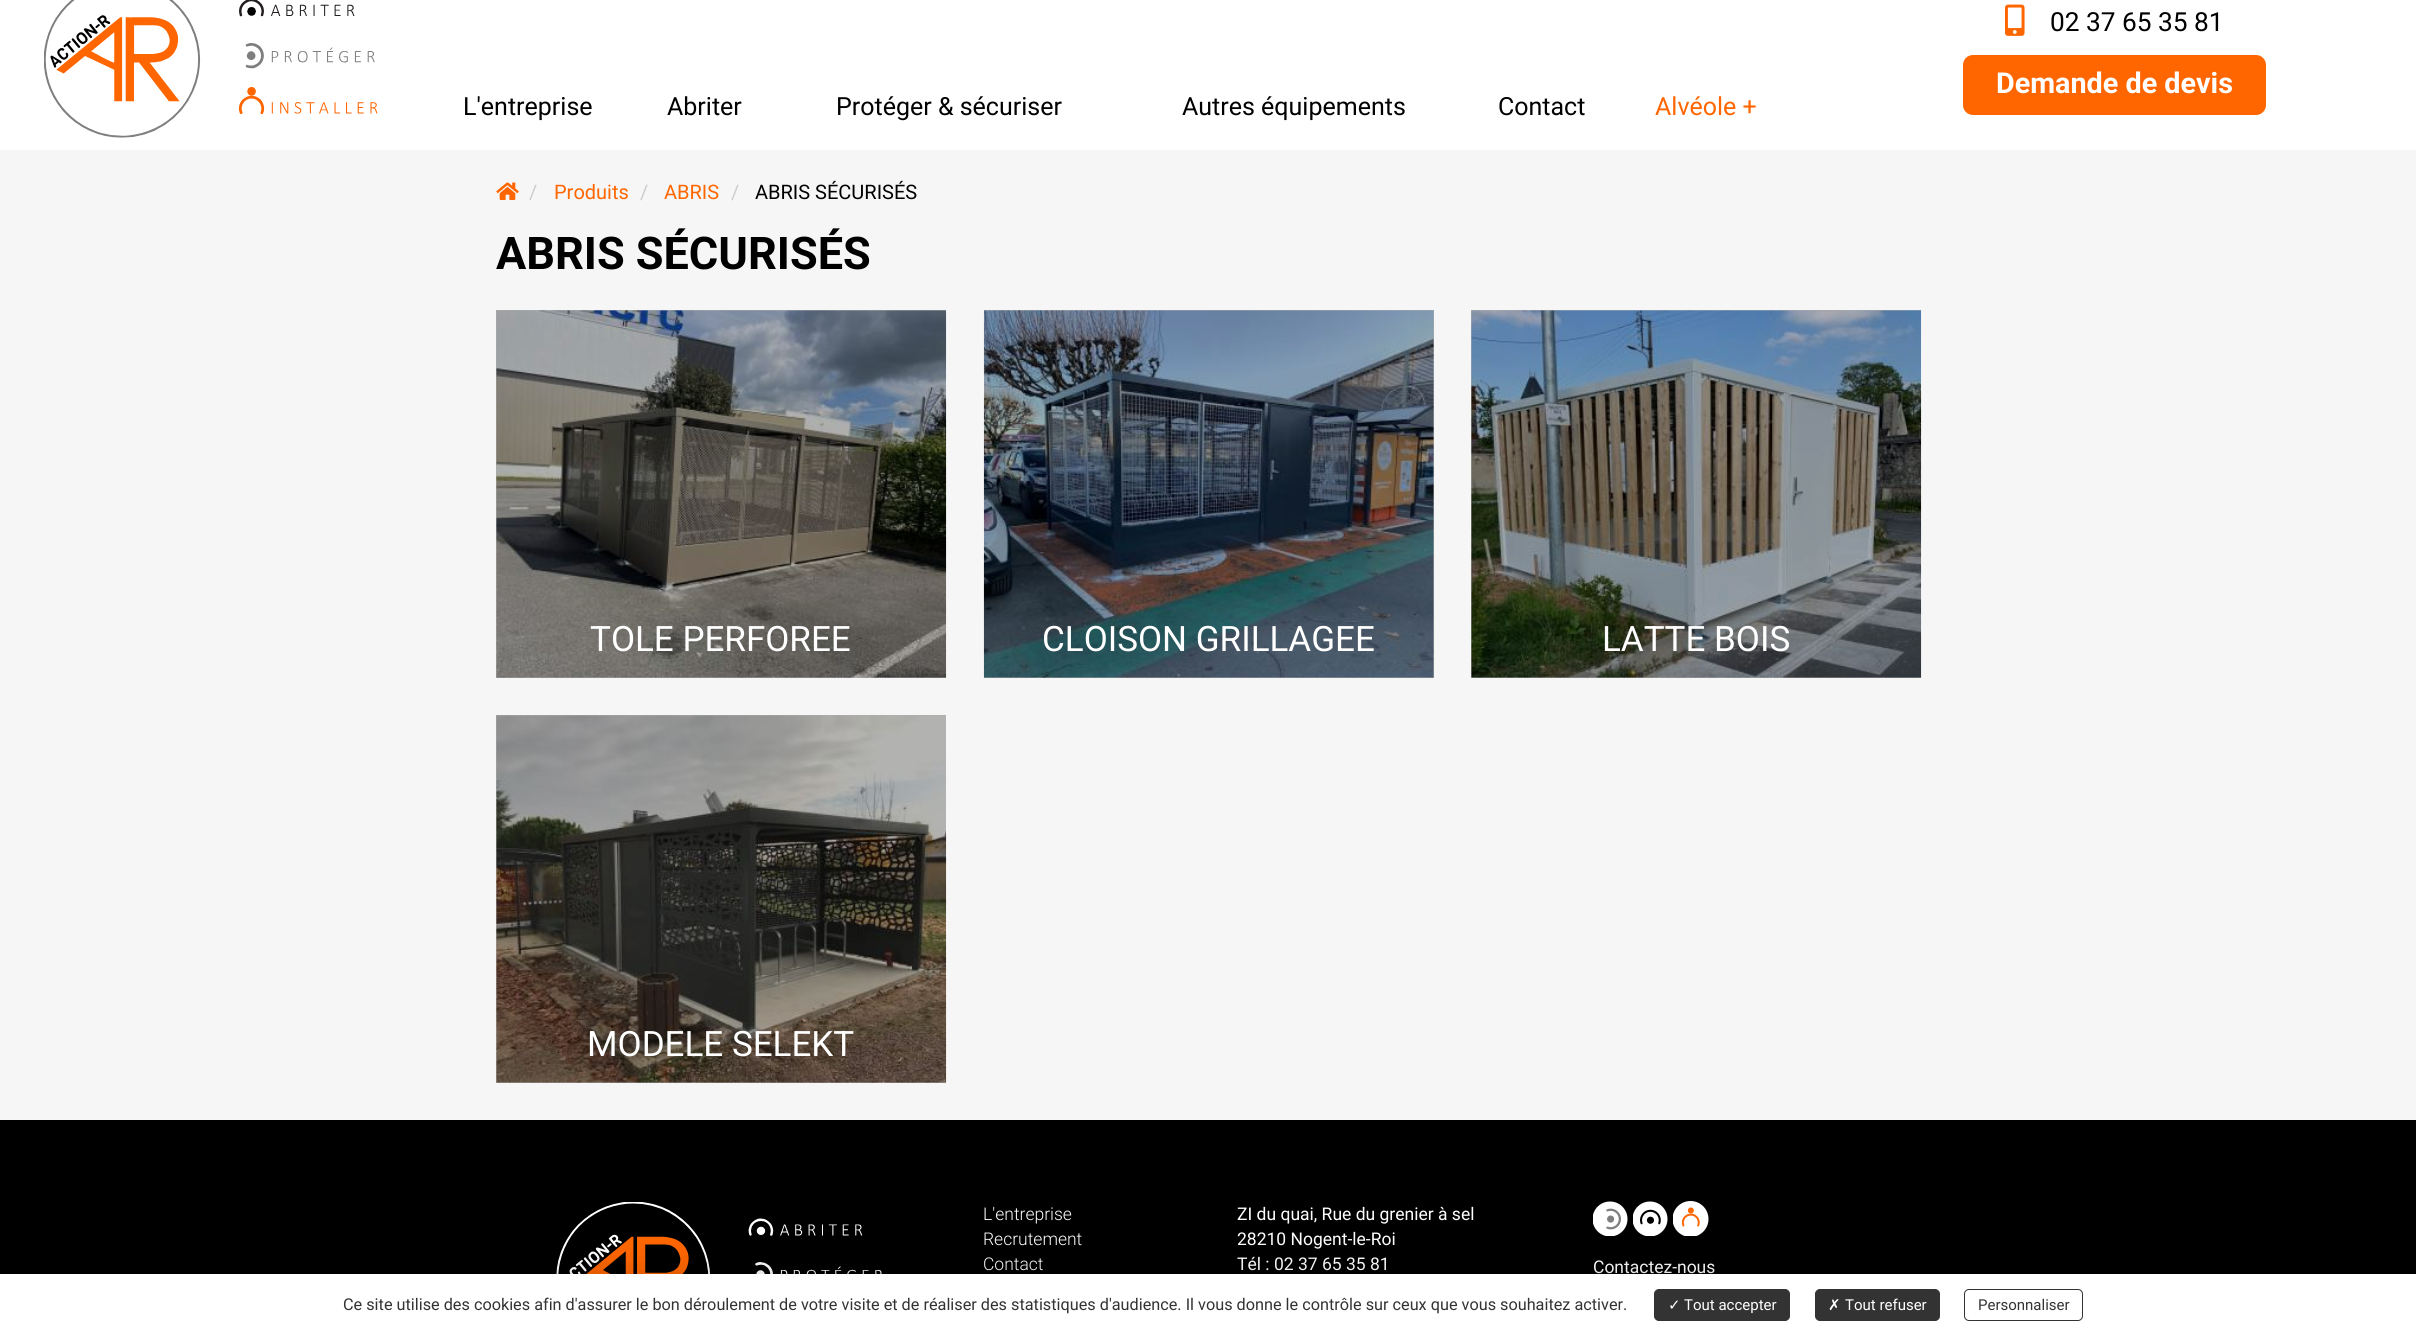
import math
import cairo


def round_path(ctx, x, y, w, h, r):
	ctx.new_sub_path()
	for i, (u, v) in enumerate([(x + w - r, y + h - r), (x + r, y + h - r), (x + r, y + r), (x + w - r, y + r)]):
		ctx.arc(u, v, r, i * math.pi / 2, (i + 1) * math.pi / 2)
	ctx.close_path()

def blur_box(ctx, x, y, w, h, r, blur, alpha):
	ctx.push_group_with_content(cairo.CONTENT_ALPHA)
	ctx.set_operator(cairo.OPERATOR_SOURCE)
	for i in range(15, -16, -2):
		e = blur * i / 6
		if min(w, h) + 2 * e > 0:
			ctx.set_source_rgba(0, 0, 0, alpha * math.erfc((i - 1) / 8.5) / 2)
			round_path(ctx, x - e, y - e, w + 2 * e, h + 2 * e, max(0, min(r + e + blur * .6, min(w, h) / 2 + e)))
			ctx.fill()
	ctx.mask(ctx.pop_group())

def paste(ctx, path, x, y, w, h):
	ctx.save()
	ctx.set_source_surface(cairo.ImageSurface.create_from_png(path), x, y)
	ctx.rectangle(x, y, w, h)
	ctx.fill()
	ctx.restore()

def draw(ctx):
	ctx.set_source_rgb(1, 1, 1)
	ctx.paint()
	paste(ctx, 'media/1.png', 44, 0, 334, 138)
	paste(ctx, 'media/2.png', 2005, 4, 20, 32)
	ctx.select_font_face('Roboto')
	ctx.set_font_size(26.25)
	ctx.set_source_rgb(0, 0, 0)
	ctx.move_to(2050, 31)
	ctx.show_text('02 37 65 35 81')
	ctx.set_source_rgb(1, 0.4, 0)
	round_path(ctx, 1964.5, 56.5, 300, 57, 8.5)
	ctx.fill_preserve()
	ctx.set_line_width(3)
	ctx.stroke()
	ctx.select_font_face('Roboto', cairo.FONT_SLANT_NORMAL, cairo.FONT_WEIGHT_BOLD)
	ctx.set_font_size(28.75)
	ctx.set_source_rgb(1, 1, 1)
	ctx.move_to(1996, 93)
	ctx.show_text('Demande de devis')
	ctx.select_font_face('Roboto')
	ctx.set_font_size(25)
	ctx.set_source_rgb(0, 0, 0)
	for x, y, s in [
		(463, 115, 'L\'entreprise'),
		(667, 115, 'Abriter'),
		(836, 115, 'Protéger & sécuriser'),
		(1182, 115, 'Autres équipements'),
		(1498, 115, 'Contact'),
	]:
		ctx.move_to(x, y)
		ctx.show_text(s)
	ctx.set_source_rgb(1, 0.4, 0)
	ctx.move_to(1655, 115)
	ctx.show_text('Alvéole +')
	ctx.set_source_rgb(0.961, 0.961, 0.961)
	ctx.rectangle(0, 150, 2416, 970)
	ctx.fill()
	ctx.set_source_rgb(0.675, 0.675, 0.675)
	ctx.rectangle(496, 715, 450, 368)
	ctx.rectangle(1471, 310, 450, 368)
	ctx.rectangle(984, 310, 450, 368)
	ctx.rectangle(496, 310, 450, 368)
	ctx.fill()
	paste(ctx, 'media/3.png', 496, 182, 23, 18)
	ctx.set_font_size(20)
	ctx.set_source_rgb(0.8, 0.8, 0.8)
	ctx.move_to(529, 199)
	ctx.show_text('/')
	ctx.set_source_rgb(1, 0.4, 0)
	ctx.move_to(554, 199)
	ctx.show_text('Produits')
	ctx.set_source_rgb(0.8, 0.8, 0.8)
	ctx.move_to(640, 199)
	ctx.show_text('/')
	ctx.set_source_rgb(1, 0.4, 0)
	ctx.move_to(664, 199)
	ctx.show_text('ABRIS')
	ctx.set_source_rgb(0.8, 0.8, 0.8)
	ctx.move_to(731, 199)
	ctx.show_text('/')
	ctx.set_source_rgb(0, 0, 0)
	ctx.move_to(755, 199)
	ctx.show_text('ABRIS SÉCURISÉS')
	ctx.select_font_face('Roboto', cairo.FONT_SLANT_NORMAL, cairo.FONT_WEIGHT_BOLD)
	ctx.set_font_size(45)
	ctx.move_to(496, 269)
	ctx.show_text('ABRIS SÉCURISÉS')
	paste(ctx, 'media/4.png', 496, 310, 451, 368)
	ctx.select_font_face('Roboto')
	ctx.set_font_size(35)
	ctx.set_source_rgb(1, 1, 1)
	ctx.move_to(590, 651)
	ctx.show_text('TOLE PERFOREE')
	paste(ctx, 'media/5.png', 983, 310, 451, 368)
	ctx.move_to(1042, 651)
	ctx.show_text('CLOISON GRILLAGEE')
	paste(ctx, 'media/6.png', 1471, 310, 451, 368)
	ctx.move_to(1602, 651)
	ctx.show_text('LATTE BOIS')
	paste(ctx, 'media/7.png', 496, 715, 451, 368)
	ctx.move_to(587, 1056)
	ctx.show_text('MODELE SELEKT')
	ctx.set_source_rgb(0, 0, 0)
	ctx.rectangle(0, 1120, 2416, 154)
	ctx.fill()
	paste(ctx, 'media/8.png', 556, 1202, 326, 72)
	ctx.select_font_face('Roboto Light')
	ctx.set_font_size(17.5)
	ctx.set_source_rgb(1, 1, 1)
	for x, y, s in [
		(983, 1220, 'L\'entreprise'),
		(983, 1245, 'Recrutement'),
		(983, 1270, 'Contact'),
	]:
		ctx.move_to(x, y)
		ctx.show_text(s)
	ctx.select_font_face('Roboto')
	for x, y, s in [
		(1237, 1220, 'ZI du quai, Rue du grenier à sel'),
		(1237, 1245, '28210 Nogent-le-Roi'),
		(1237, 1270, 'Tél : 02 37 65 35 81'),
	]:
		ctx.move_to(x, y)
		ctx.show_text(s)
	paste(ctx, 'media/9.png', 1593, 1201, 35, 35)
	paste(ctx, 'media/10.png', 1633, 1201, 35, 35)
	paste(ctx, 'media/11.png', 1673, 1201, 36, 35)
	ctx.move_to(1593, 1273)
	ctx.show_text('Contactez-nous')
	ctx.set_source_rgb(0, 0, 0)
	blur_box(ctx, 8, 1289, 2408, 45, 0, 22.5, 0.4)
	ctx.set_source_rgb(1, 1, 1)
	ctx.rectangle(0, 1274, 2416, 59)
	ctx.fill()
	ctx.set_font_size(16.25)
	ctx.set_source_rgb(0.2, 0.2, 0.2)
	ctx.move_to(343, 1310)
	ctx.show_text('Ce site utilise des cookies afin d\'assurer le bon déroulement de votre visite et de réaliser des statistiques d\'audience. Il vous donne le contrôle sur ceux que vous souhaitez activer.')
	round_path(ctx, 1654.5, 1289.5, 135, 31, 4.5)
	ctx.fill_preserve()
	ctx.set_line_width(1)
	ctx.stroke()
	ctx.select_font_face('DejaVu Sans')
	ctx.set_font_size(15)
	ctx.set_source_rgb(1, 1, 1)
	ctx.move_to(1668, 1310)
	ctx.show_text('✓')
	ctx.select_font_face('Roboto')
	ctx.move_to(1684, 1310)
	ctx.show_text('Tout accepter')
	ctx.set_source_rgb(0.2, 0.2, 0.2)
	round_path(ctx, 1815.5, 1289.5, 124, 31, 4.5)
	ctx.fill_preserve()
	ctx.stroke()
	ctx.select_font_face('DejaVu Sans')
	ctx.set_source_rgb(1, 1, 1)
	ctx.move_to(1828, 1310)
	ctx.show_text('✗')
	ctx.select_font_face('Roboto')
	ctx.move_to(1845, 1310)
	ctx.show_text('Tout refuser')
	round_path(ctx, 1964.5, 1289.5, 118, 31, 4.5)
	ctx.set_source_rgb(0.2, 0.2, 0.2)
	ctx.stroke()
	ctx.move_to(1978, 1310)
	ctx.show_text('Personnaliser')


surface = cairo.ImageSurface(cairo.FORMAT_RGB24, 2416, 1333)
ctx = cairo.Context(surface)
options = cairo.FontOptions()
options.set_hint_metrics(cairo.HINT_METRICS_OFF)
options.set_hint_style(cairo.HINT_STYLE_NONE)
ctx.set_font_options(options)
ctx.set_miter_limit(4)
draw(ctx)
surface.write_to_png('image.png')
